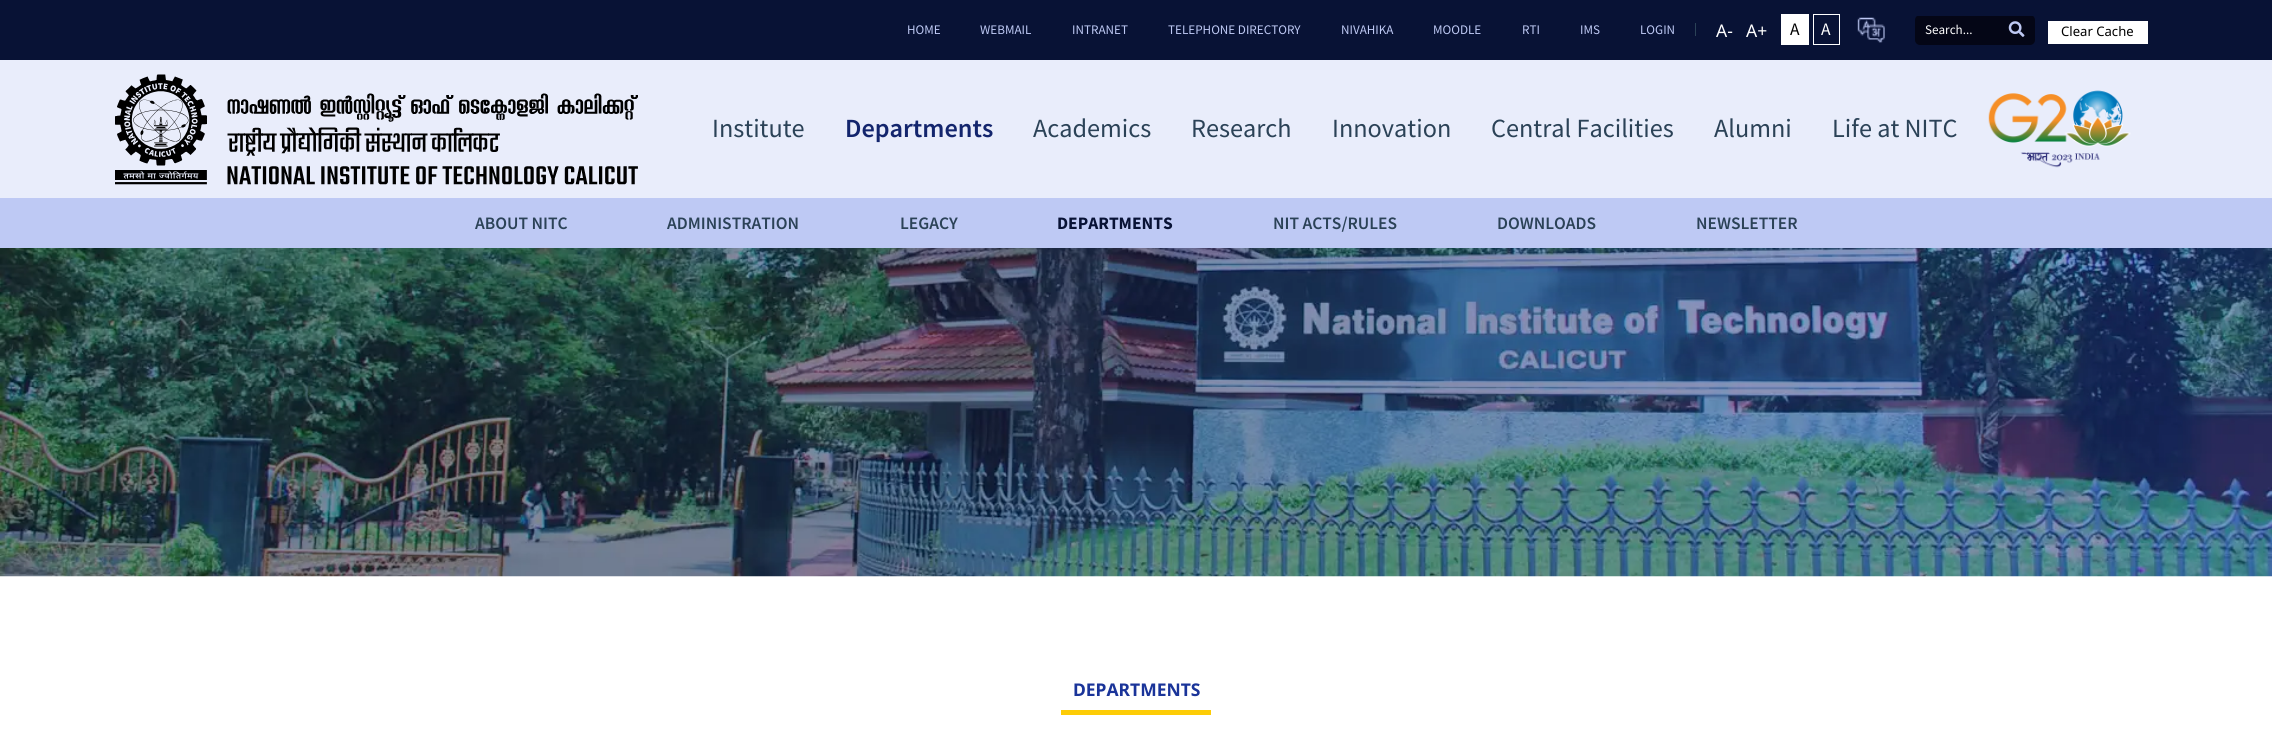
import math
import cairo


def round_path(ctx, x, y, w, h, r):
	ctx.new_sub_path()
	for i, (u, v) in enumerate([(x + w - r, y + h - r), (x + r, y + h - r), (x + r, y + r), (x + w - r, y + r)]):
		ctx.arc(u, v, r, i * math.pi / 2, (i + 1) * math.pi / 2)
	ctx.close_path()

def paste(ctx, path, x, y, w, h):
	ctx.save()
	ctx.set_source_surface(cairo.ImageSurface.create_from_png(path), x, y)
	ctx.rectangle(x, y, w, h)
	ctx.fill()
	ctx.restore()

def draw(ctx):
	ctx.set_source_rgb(0.035, 0.071, 0.208)
	ctx.paint()
	ctx.select_font_face('Source Sans Pro')
	ctx.set_font_size(13.1)
	ctx.set_source_rgb(0.745, 0.788, 0.957)
	for x, y, s in [
		(907, 34, 'HOME'),
		(980, 34, 'WEBMAIL'),
		(1072, 34, 'INTRANET'),
		(1168, 34, 'TELEPHONE DIRECTORY'),
		(1341, 34, 'NIVAHIKA'),
		(1433, 34, 'MOODLE'),
		(1522, 34, 'RTI'),
		(1580, 34, 'IMS'),
		(1640, 34, 'LOGIN'),
	]:
		ctx.move_to(x, y)
		ctx.show_text(s)
	ctx.set_source_rgb(0.169, 0.259, 0.341)
	ctx.rectangle(1695, 23, 1, 13)
	ctx.fill()
	ctx.select_font_face('Noto Sans')
	ctx.set_font_size(17.5)
	ctx.set_source_rgb(1, 1, 1)
	ctx.move_to(1716, 37)
	ctx.show_text('A-')
	ctx.move_to(1746, 37)
	ctx.show_text('A+')
	ctx.rectangle(1781, 14, 28, 31)
	ctx.fill()
	ctx.select_font_face('Source Sans Pro')
	ctx.set_source_rgb(0, 0, 0)
	ctx.move_to(1790, 35)
	ctx.show_text('A')
	ctx.rectangle(1813.5, 14.5, 26, 30)
	ctx.set_source_rgb(1, 1, 1)
	ctx.set_line_width(1)
	ctx.stroke()
	ctx.move_to(1821, 35)
	ctx.show_text('A')
	paste(ctx, 'media/1.png', 1857, 17, 28, 26)
	ctx.save()
	round_path(ctx, 1915, 15, 120, 30, 5)
	ctx.clip()
	ctx.set_source_rgb(0.016, 0.027, 0.086)
	ctx.new_path()
	ctx.move_to(1917.5, 16)
	ctx.line_to(2032.5, 16)
	ctx.curve_to(2034, 16, 2035, 17, 2035, 18.5)
	ctx.line_to(2035, 40)
	ctx.curve_to(2035, 43, 2033, 45, 2030, 45)
	ctx.line_to(1920, 45)
	ctx.curve_to(1917, 45, 1915, 43, 1915, 40)
	ctx.line_to(1915, 18.5)
	ctx.curve_to(1915, 17, 1916, 16, 1917.5, 16)
	ctx.close_path()
	ctx.fill()
	ctx.restore()
	ctx.set_font_size(13.1)
	ctx.move_to(1925, 34)
	ctx.show_text('Search...')
	paste(ctx, 'media/2.png', 2008, 21, 17, 16)
	ctx.rectangle(2048, 21, 100, 23)
	ctx.fill()
	ctx.select_font_face('Noto Sans')
	ctx.set_source_rgb(0, 0, 0)
	ctx.move_to(2061, 36)
	ctx.show_text('Clear Cache')
	ctx.set_source_rgb(0.914, 0.929, 0.984)
	ctx.rectangle(0, 60, 2272, 138)
	ctx.fill()
	paste(ctx, 'media/3.png', 115, 74, 523, 111)
	ctx.select_font_face('Source Sans Pro')
	ctx.set_font_size(26.25)
	ctx.set_source_rgb(0.169, 0.259, 0.341)
	ctx.move_to(712, 137)
	ctx.show_text('Institute')
	ctx.select_font_face('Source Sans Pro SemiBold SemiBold')
	ctx.set_source_rgb(0.075, 0.145, 0.427)
	ctx.move_to(845, 137)
	ctx.show_text('Departments')
	ctx.select_font_face('Source Sans Pro')
	ctx.set_source_rgb(0.169, 0.259, 0.341)
	for x, y, s in [
		(1033, 137, 'Academics'),
		(1191, 137, 'Research'),
		(1332, 137, 'Innovation'),
		(1491, 137, 'Central Facilities'),
		(1714, 137, 'Alumni'),
		(1832, 137, 'Life at NITC'),
	]:
		ctx.move_to(x, y)
		ctx.show_text(s)
	paste(ctx, 'media/4.png', 1988, 90, 143, 78)
	ctx.set_source_rgb(0.745, 0.788, 0.957)
	ctx.rectangle(0, 198, 2272, 50)
	ctx.fill()
	ctx.select_font_face('Source Sans Pro SemiBold SemiBold')
	ctx.set_font_size(17.5)
	ctx.set_source_rgb(0.169, 0.259, 0.341)
	for x, y, s in [
		(475, 229, 'ABOUT NITC'),
		(667, 229, 'ADMINISTRATION'),
		(900, 229, 'LEGACY'),
	]:
		ctx.move_to(x, y)
		ctx.show_text(s)
	ctx.select_font_face('Source Sans Pro', cairo.FONT_SLANT_NORMAL, cairo.FONT_WEIGHT_BOLD)
	ctx.set_source_rgb(0.035, 0.071, 0.208)
	ctx.move_to(1057, 229)
	ctx.show_text('DEPARTMENTS')
	ctx.select_font_face('Source Sans Pro SemiBold SemiBold')
	ctx.set_source_rgb(0.169, 0.259, 0.341)
	for x, y, s in [
		(1273, 229, 'NIT ACTS/RULES'),
		(1497, 229, 'DOWNLOADS'),
		(1696, 229, 'NEWSLETTER'),
	]:
		ctx.move_to(x, y)
		ctx.show_text(s)
	ctx.set_source_rgb(1, 1, 1)
	ctx.rectangle(0, 576, 2272, 176)
	ctx.fill()
	paste(ctx, 'media/5.png', 0, 248, 2272, 329)
	ctx.select_font_face('Noto Sans', cairo.FONT_SLANT_NORMAL, cairo.FONT_WEIGHT_BOLD)
	ctx.set_source_rgb(0.102, 0.204, 0.6)
	ctx.move_to(1073, 696)
	ctx.show_text('DEPARTMENTS')
	ctx.set_source_rgb(0.992, 0.8, 0.027)
	ctx.rectangle(1061, 710, 150, 5)
	ctx.fill()


surface = cairo.ImageSurface(cairo.FORMAT_RGB24, 2272, 752)
ctx = cairo.Context(surface)
options = cairo.FontOptions()
options.set_hint_metrics(cairo.HINT_METRICS_OFF)
options.set_hint_style(cairo.HINT_STYLE_NONE)
ctx.set_font_options(options)
ctx.set_miter_limit(4)
draw(ctx)
surface.write_to_png('image.png')
